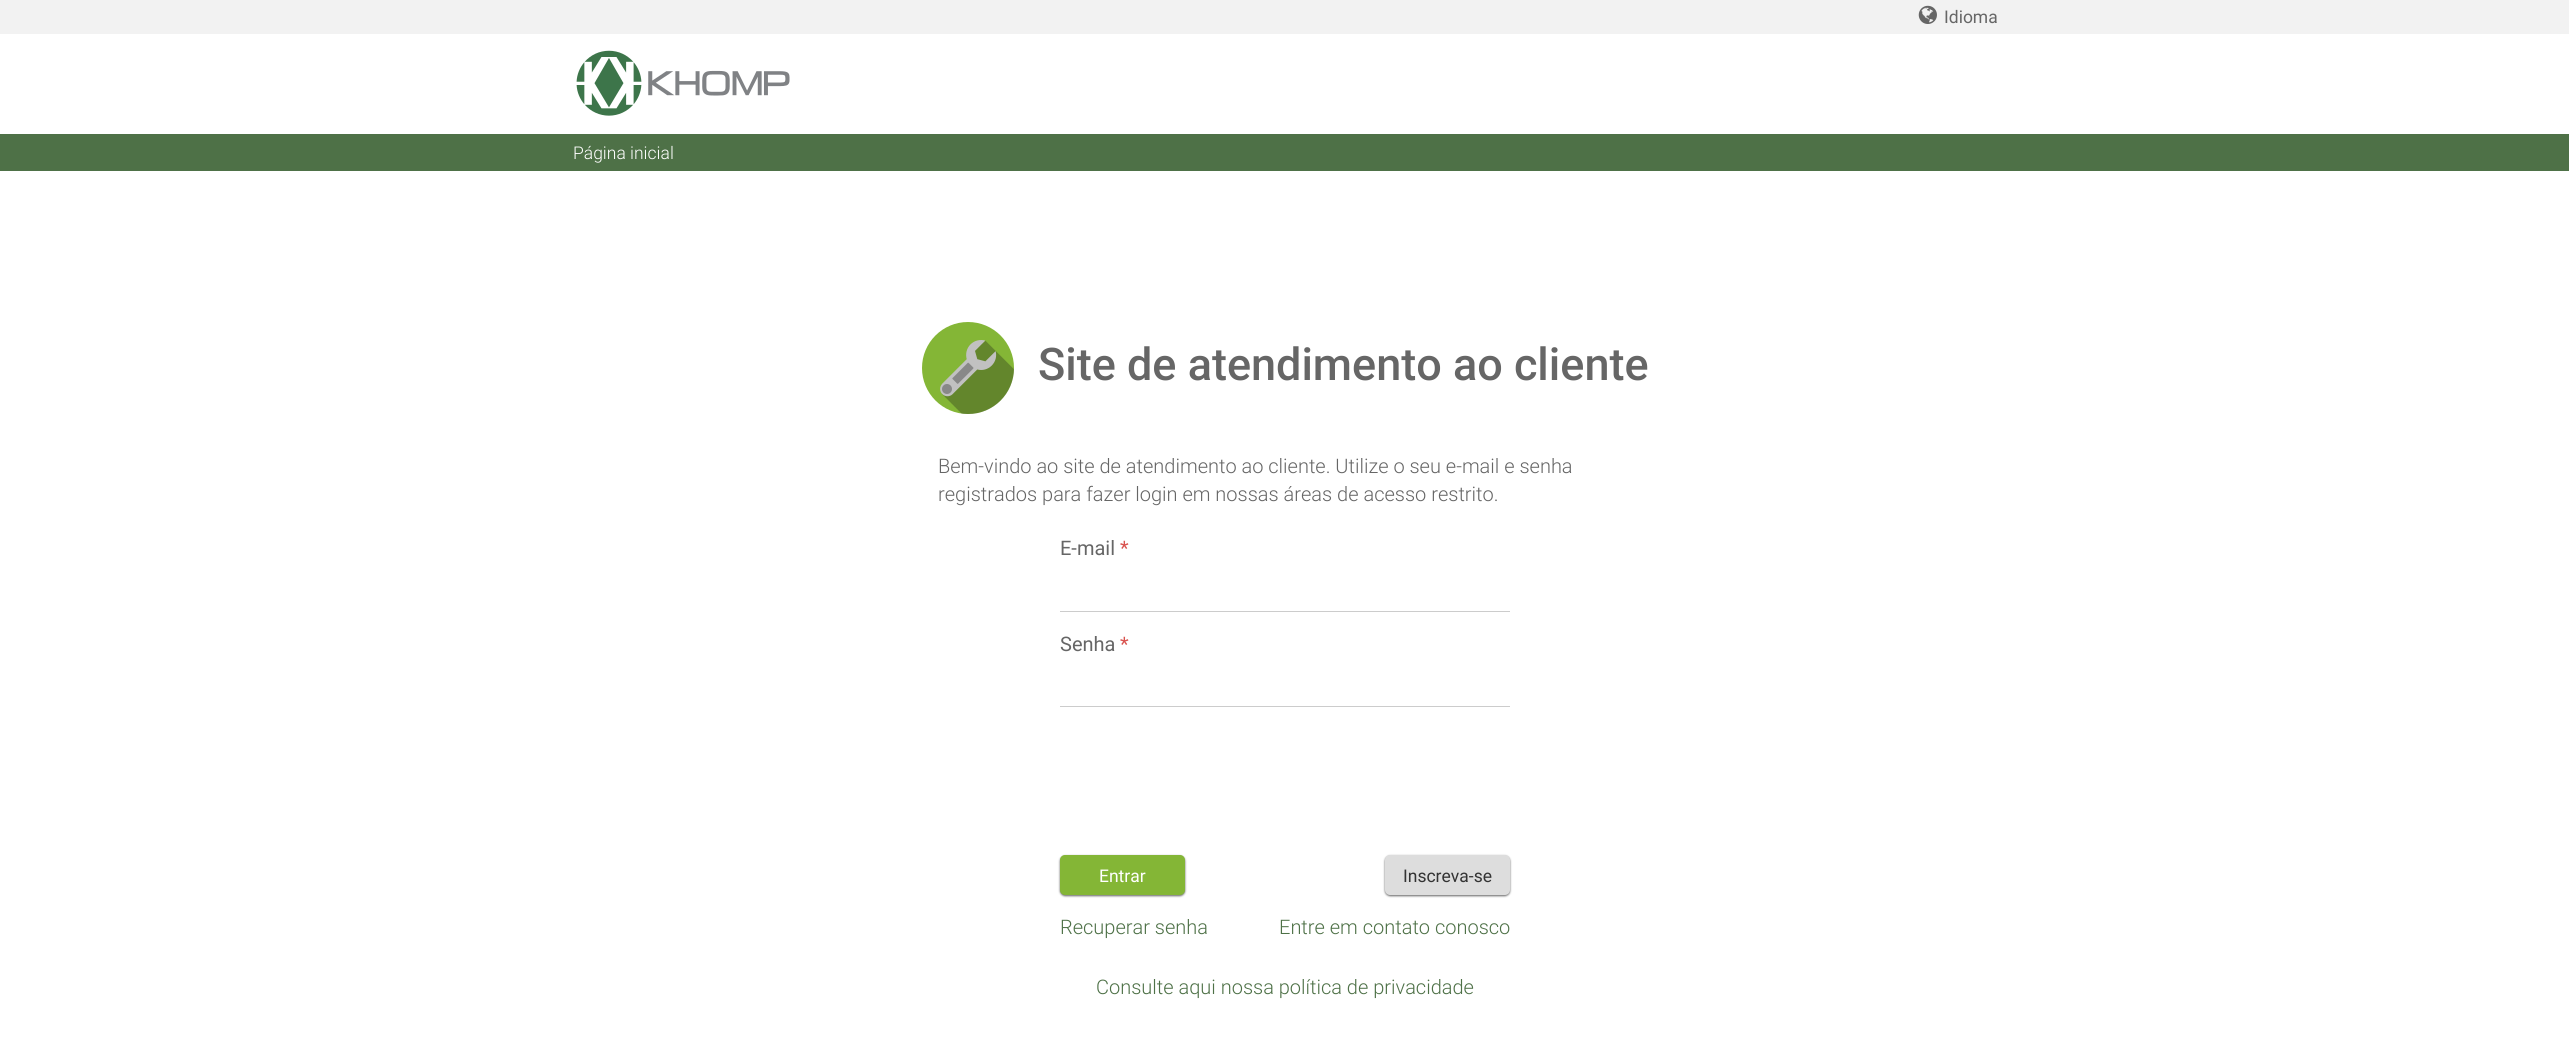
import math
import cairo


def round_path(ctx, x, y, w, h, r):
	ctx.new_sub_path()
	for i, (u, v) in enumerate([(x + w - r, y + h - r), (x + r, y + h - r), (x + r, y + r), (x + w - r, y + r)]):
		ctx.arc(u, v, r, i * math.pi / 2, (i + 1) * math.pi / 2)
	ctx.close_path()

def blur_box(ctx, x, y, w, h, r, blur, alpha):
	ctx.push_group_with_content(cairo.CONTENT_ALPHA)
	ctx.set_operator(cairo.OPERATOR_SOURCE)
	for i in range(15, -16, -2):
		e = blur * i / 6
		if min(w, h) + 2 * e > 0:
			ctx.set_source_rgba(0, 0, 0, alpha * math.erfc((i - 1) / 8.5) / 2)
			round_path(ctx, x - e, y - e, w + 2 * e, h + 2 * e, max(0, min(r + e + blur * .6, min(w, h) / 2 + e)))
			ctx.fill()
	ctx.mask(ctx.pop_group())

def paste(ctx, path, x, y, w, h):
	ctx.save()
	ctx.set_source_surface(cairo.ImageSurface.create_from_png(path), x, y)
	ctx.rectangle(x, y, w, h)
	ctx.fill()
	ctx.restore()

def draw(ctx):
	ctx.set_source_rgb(1, 1, 1)
	ctx.paint()
	ctx.set_source_rgb(0.949, 0.949, 0.949)
	ctx.rectangle(0, 0, 2569, 34)
	ctx.fill()
	paste(ctx, 'media/1.png', 1918, 5, 19, 19)
	ctx.select_font_face('Roboto')
	ctx.set_font_size(17.5)
	ctx.set_source_rgb(0.4, 0.4, 0.4)
	ctx.move_to(1944, 23)
	ctx.show_text('Idioma')
	paste(ctx, 'media/2.png', 576, 50, 214, 66)
	ctx.set_source_rgb(0.306, 0.443, 0.278)
	ctx.rectangle(0, 134, 2569, 37)
	ctx.fill()
	ctx.select_font_face('Roboto Light')
	ctx.set_source_rgb(1, 1, 1)
	ctx.move_to(573, 159)
	ctx.show_text('Página inicial')
	paste(ctx, 'media/3.png', 922, 322, 92, 92)
	ctx.select_font_face('Roboto Medium')
	ctx.set_font_size(45)
	ctx.set_source_rgb(0.4, 0.4, 0.4)
	ctx.move_to(1038, 380)
	ctx.show_text('Site de atendimento ao cliente')
	ctx.select_font_face('Roboto Light')
	ctx.set_font_size(20)
	ctx.move_to(938, 473)
	ctx.show_text('Bem-vindo ao site de atendimento ao cliente. Utilize o seu e-mail e senha')
	ctx.move_to(938, 501)
	ctx.show_text('registrados para fazer login em nossas áreas de acesso restrito.')
	ctx.select_font_face('Roboto')
	ctx.move_to(1060, 555)
	ctx.show_text('E-mail')
	ctx.set_source_rgb(0.851, 0.325, 0.31)
	ctx.move_to(1120, 555)
	ctx.show_text('*')
	ctx.set_source_rgb(0.8, 0.8, 0.8)
	ctx.rectangle(1060, 611, 450, 1)
	ctx.fill()
	ctx.set_source_rgb(0.4, 0.4, 0.4)
	ctx.move_to(1060, 651)
	ctx.show_text('Senha')
	ctx.set_source_rgb(0.851, 0.325, 0.31)
	ctx.move_to(1120, 651)
	ctx.show_text('*')
	ctx.set_source_rgb(0.8, 0.8, 0.8)
	ctx.rectangle(1060, 706, 450, 1)
	ctx.fill()
	ctx.set_source_rgb(0.4, 0.4, 0.4)
	blur_box(ctx, 1060, 856, 125, 40, 5, 1, 1)
	ctx.set_source_rgb(0.518, 0.714, 0.212)
	round_path(ctx, 1060, 855, 125, 40, 5)
	ctx.fill()
	ctx.set_font_size(17.5)
	ctx.set_source_rgb(1, 1, 1)
	ctx.move_to(1099, 882)
	ctx.show_text('Entrar')
	ctx.set_source_rgb(0.4, 0.4, 0.4)
	blur_box(ctx, 1385, 856, 125, 40, 5, 1, 1)
	ctx.set_source_rgb(0.867, 0.867, 0.867)
	round_path(ctx, 1385, 855, 125, 40, 5)
	ctx.fill()
	ctx.set_source_rgb(0.2, 0.2, 0.2)
	ctx.move_to(1403, 882)
	ctx.show_text('Inscreva-se')
	ctx.select_font_face('Roboto Light')
	ctx.set_font_size(20)
	ctx.set_source_rgb(0.306, 0.443, 0.278)
	for x, y, s in [
		(1060, 934, 'Recuperar senha'),
		(1279, 934, 'Entre em contato conosco'),
		(1096, 994, 'Consulte aqui nossa política de privacidade'),
	]:
		ctx.move_to(x, y)
		ctx.show_text(s)


surface = cairo.ImageSurface(cairo.FORMAT_RGB24, 2569, 1048)
ctx = cairo.Context(surface)
options = cairo.FontOptions()
options.set_hint_metrics(cairo.HINT_METRICS_OFF)
options.set_hint_style(cairo.HINT_STYLE_NONE)
ctx.set_font_options(options)
ctx.set_miter_limit(4)
draw(ctx)
surface.write_to_png('image.png')
